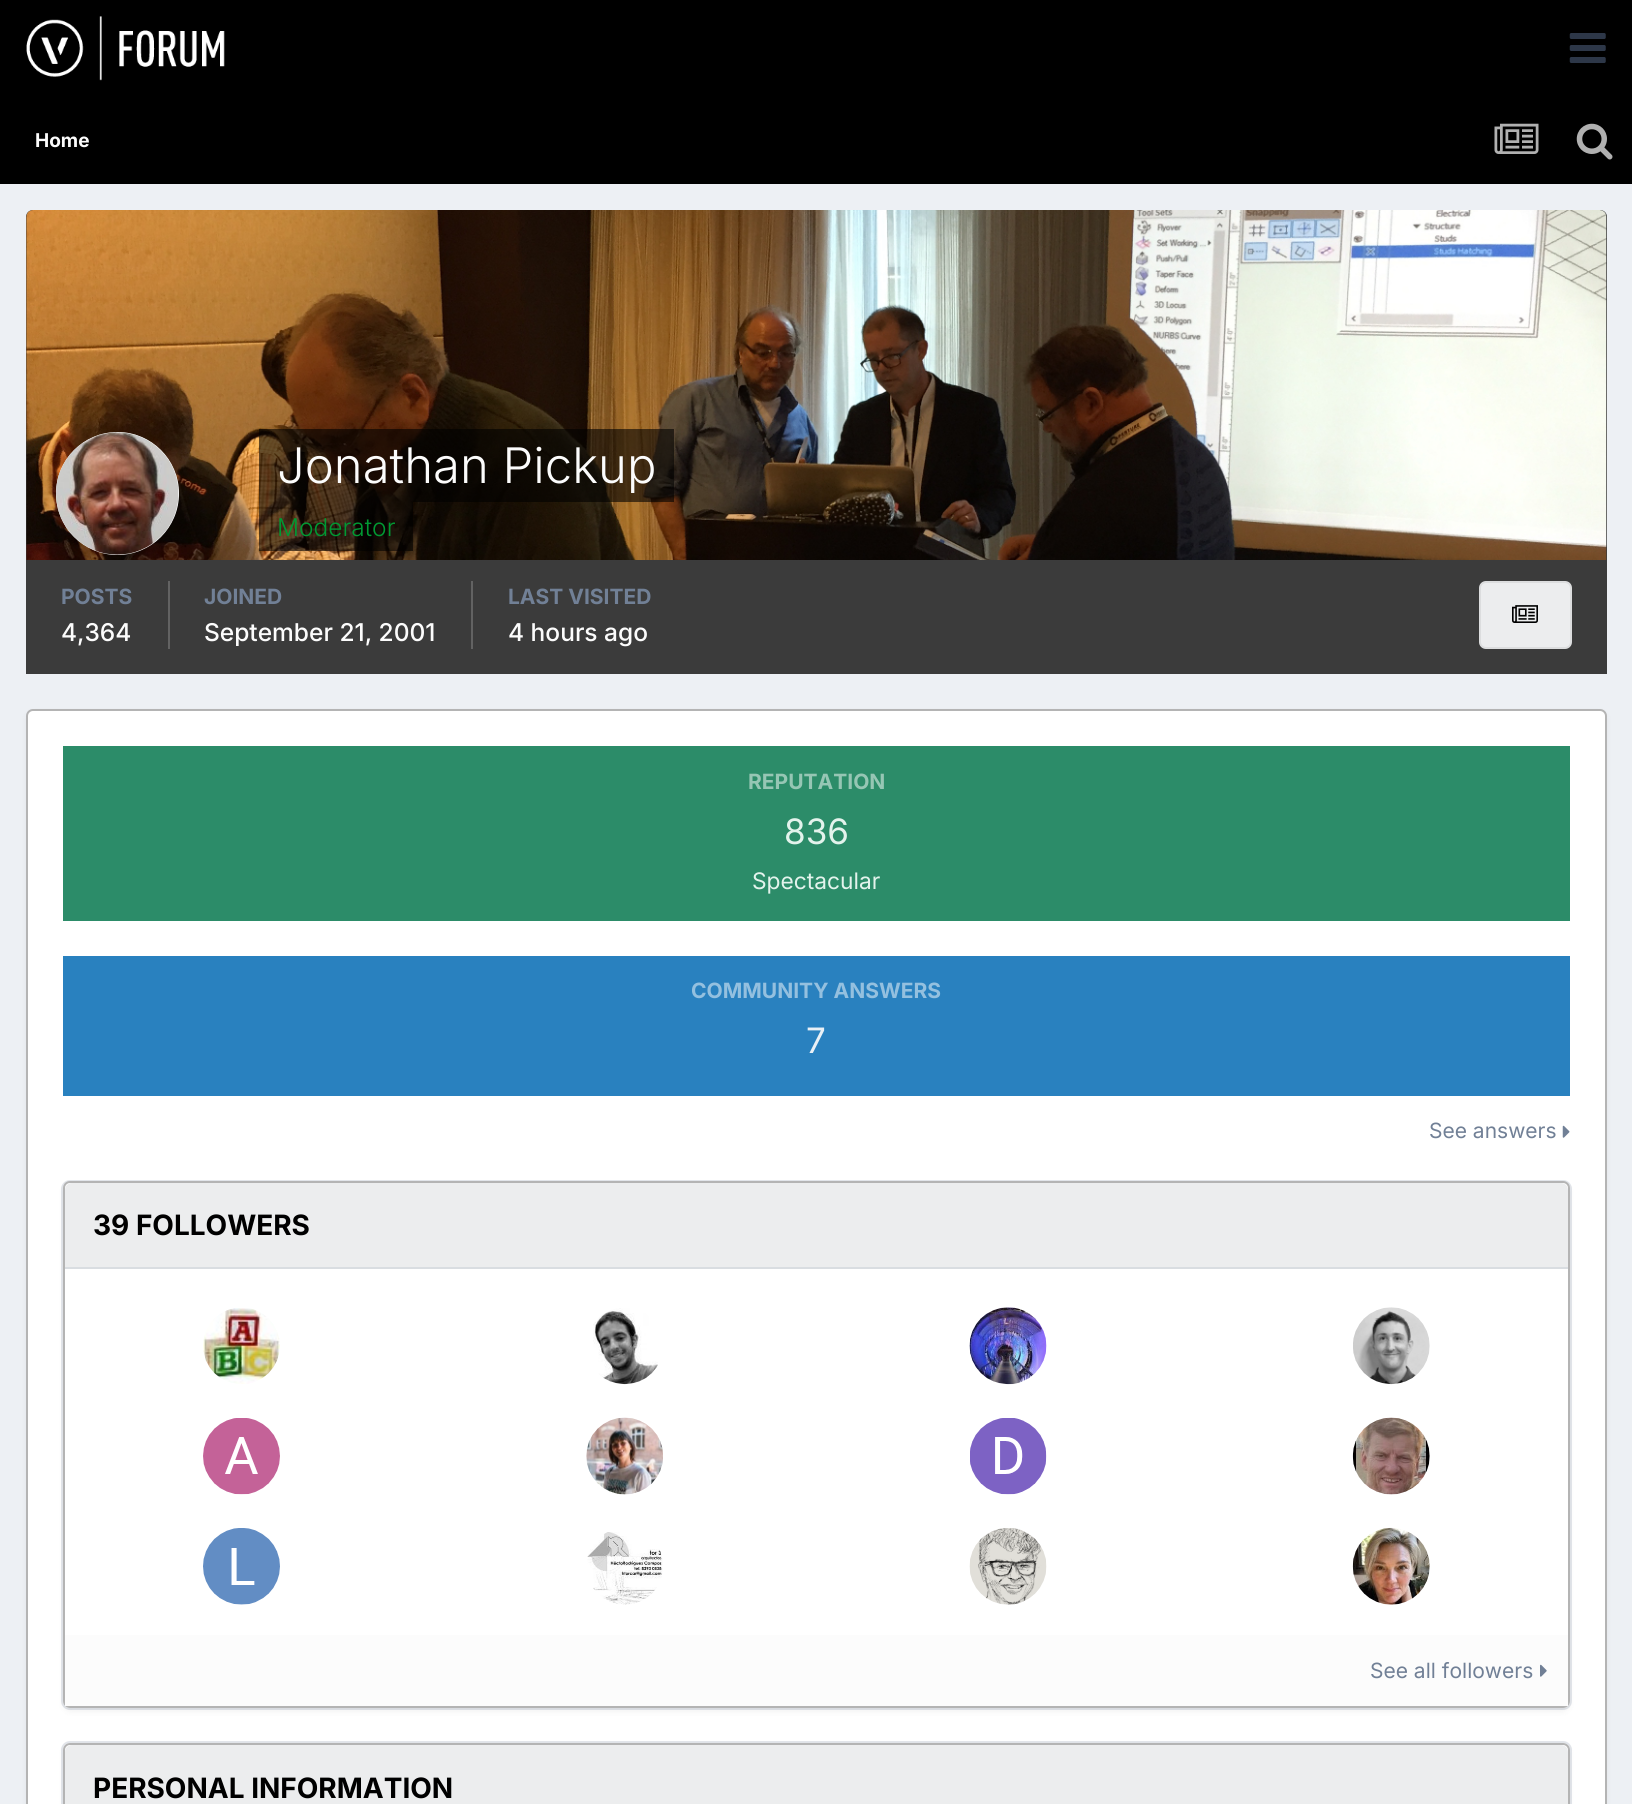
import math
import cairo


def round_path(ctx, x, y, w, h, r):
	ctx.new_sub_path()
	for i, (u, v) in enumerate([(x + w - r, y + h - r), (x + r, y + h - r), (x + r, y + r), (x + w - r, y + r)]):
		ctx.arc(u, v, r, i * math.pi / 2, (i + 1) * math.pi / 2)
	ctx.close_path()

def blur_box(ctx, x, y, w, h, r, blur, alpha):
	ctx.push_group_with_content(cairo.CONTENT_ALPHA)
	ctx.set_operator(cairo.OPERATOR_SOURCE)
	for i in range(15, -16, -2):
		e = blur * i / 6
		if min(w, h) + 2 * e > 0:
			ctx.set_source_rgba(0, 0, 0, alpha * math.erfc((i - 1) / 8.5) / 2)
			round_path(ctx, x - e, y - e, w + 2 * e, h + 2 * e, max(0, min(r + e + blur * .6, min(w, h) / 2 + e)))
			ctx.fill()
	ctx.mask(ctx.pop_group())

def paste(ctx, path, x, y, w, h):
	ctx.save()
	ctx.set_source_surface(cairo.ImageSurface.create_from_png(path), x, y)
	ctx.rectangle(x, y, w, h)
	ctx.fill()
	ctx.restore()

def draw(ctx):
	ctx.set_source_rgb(0.929, 0.941, 0.957)
	ctx.paint()
	ctx.set_source_rgb(0, 0, 0)
	ctx.rectangle(0, 0, 1632, 184)
	ctx.fill()
	paste(ctx, 'media/1.png', 26, 16, 199, 65)
	paste(ctx, 'media/2.png', 1569, 33, 37, 30)
	ctx.select_font_face('Inter', cairo.FONT_SLANT_NORMAL, cairo.FONT_WEIGHT_BOLD)
	ctx.set_font_size(19)
	ctx.set_source_rgb(0.988, 0.988, 0.988)
	ctx.move_to(35, 147)
	ctx.show_text('Home')
	paste(ctx, 'media/3.png', 1494, 123, 45, 31)
	paste(ctx, 'media/4.png', 1576, 123, 37, 37)
	ctx.set_source_rgb(0.231, 0.231, 0.231)
	ctx.new_path()
	ctx.move_to(33, 210)
	ctx.line_to(1600, 210)
	ctx.curve_to(1604, 210, 1607, 213, 1607, 217)
	ctx.line_to(1607, 560)
	ctx.line_to(26, 560)
	ctx.line_to(26, 217)
	ctx.curve_to(26, 213, 29, 210, 33, 210)
	ctx.close_path()
	ctx.fill()
	paste(ctx, 'media/5.png', 26, 210, 1581, 350)
	ctx.set_source_rgb(1, 1, 1)
	ctx.arc(117.5, 493.5, 61.5, 0, 2 * math.pi)
	ctx.fill()
	paste(ctx, 'media/6.png', 56, 432, 123, 123)
	ctx.set_source_rgba(0, 0, 0, 0.6)
	ctx.rectangle(259, 429, 415, 73)
	ctx.fill()
	ctx.select_font_face('Inter Light')
	ctx.set_font_size(49)
	ctx.set_source_rgb(0.988, 0.988, 0.988)
	ctx.move_to(277, 483)
	ctx.show_text('Jonathan Pickup')
	ctx.set_source_rgba(0, 0, 0, 0.6)
	ctx.rectangle(259, 502, 154, 49)
	ctx.fill()
	ctx.set_font_size(24.5)
	ctx.set_source_rgb(0, 0.6, 0.2)
	ctx.move_to(277, 536)
	ctx.show_text('Moderator')
	ctx.set_source_rgb(0.231, 0.231, 0.231)
	ctx.rectangle(26, 560, 1581, 114)
	ctx.fill()
	ctx.set_source_rgb(0.384, 0.384, 0.384)
	ctx.rectangle(168, 581, 2, 68)
	ctx.fill()
	ctx.select_font_face('Inter', cairo.FONT_SLANT_NORMAL, cairo.FONT_WEIGHT_BOLD)
	ctx.set_font_size(21)
	ctx.set_source_rgb(0.443, 0.502, 0.588)
	ctx.move_to(61, 604)
	ctx.show_text('POSTS')
	ctx.select_font_face('Inter Medium')
	ctx.set_font_size(24.5)
	ctx.set_source_rgb(0.988, 0.988, 0.988)
	ctx.move_to(61, 641)
	ctx.show_text('4,364')
	ctx.set_source_rgb(0.384, 0.384, 0.384)
	ctx.rectangle(471, 581, 2, 68)
	ctx.fill()
	ctx.select_font_face('Inter', cairo.FONT_SLANT_NORMAL, cairo.FONT_WEIGHT_BOLD)
	ctx.set_font_size(21)
	ctx.set_source_rgb(0.443, 0.502, 0.588)
	ctx.move_to(204, 604)
	ctx.show_text('JOINED')
	ctx.select_font_face('Inter Medium')
	ctx.set_font_size(24.5)
	ctx.set_source_rgb(0.988, 0.988, 0.988)
	ctx.move_to(204, 641)
	ctx.show_text('September 21, 2001')
	ctx.select_font_face('Inter', cairo.FONT_SLANT_NORMAL, cairo.FONT_WEIGHT_BOLD)
	ctx.set_font_size(21)
	ctx.set_source_rgb(0.443, 0.502, 0.588)
	ctx.move_to(508, 604)
	ctx.show_text('LAST VISITED')
	ctx.select_font_face('Inter Medium')
	ctx.set_font_size(24.5)
	ctx.set_source_rgb(0.988, 0.988, 0.988)
	ctx.move_to(508, 641)
	ctx.show_text('4 hours ago')
	ctx.set_source_rgb(0.922, 0.929, 0.933)
	round_path(ctx, 1479, 581, 93, 68, 7)
	ctx.fill()
	round_path(ctx, 1480, 582, 91, 66, 6)
	ctx.set_source_rgba(0, 0, 0, 0.07)
	ctx.stroke()
	paste(ctx, 'media/7.png', 1512, 605, 26, 18)
	ctx.set_source_rgb(0.231, 0.231, 0.231)
	blur_box(ctx, 28, 714, 1577, 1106, 5, 3.5, 0.1)
	ctx.set_source_rgb(1, 1, 1)
	round_path(ctx, 27, 710, 1579, 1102, 6)
	ctx.fill_preserve()
	ctx.set_source_rgb(0.706, 0.706, 0.706)
	ctx.stroke()
	ctx.set_source_rgb(0.173, 0.549, 0.412)
	ctx.rectangle(63, 746, 1507, 175)
	ctx.fill()
	ctx.select_font_face('Inter', cairo.FONT_SLANT_NORMAL, cairo.FONT_WEIGHT_BOLD)
	ctx.set_font_size(21)
	ctx.set_source_rgb(0.588, 0.776, 0.706)
	ctx.move_to(748, 789)
	ctx.show_text('REPUTATION')
	ctx.select_font_face('Inter')
	ctx.set_font_size(35)
	ctx.set_source_rgb(0.89, 0.953, 0.925)
	ctx.move_to(784, 844)
	ctx.show_text('836')
	ctx.set_font_size(22.75)
	ctx.move_to(752, 889)
	ctx.show_text('Spectacular')
	ctx.set_source_rgb(0.161, 0.506, 0.749)
	ctx.rectangle(63, 956, 1507, 140)
	ctx.fill()
	ctx.select_font_face('Inter', cairo.FONT_SLANT_NORMAL, cairo.FONT_WEIGHT_BOLD)
	ctx.set_font_size(21)
	ctx.set_source_rgb(0.58, 0.753, 0.875)
	ctx.move_to(691, 998)
	ctx.show_text('COMMUNITY ANSWERS')
	ctx.select_font_face('Inter')
	ctx.set_font_size(35)
	ctx.set_source_rgb(0.914, 0.941, 0.961)
	ctx.move_to(806, 1053)
	ctx.show_text('7')
	ctx.set_font_size(21)
	ctx.set_source_rgb(0.443, 0.502, 0.588)
	ctx.move_to(1429, 1138)
	ctx.show_text('See answers')
	paste(ctx, 'media/8.png', 1562, 1125, 8, 13)
	ctx.set_source_rgb(0.231, 0.231, 0.231)
	blur_box(ctx, 65, 1187, 1503, 523, 5, 3.5, 0.1)
	round_path(ctx, 62, 1181, 1509, 528, 8)
	ctx.set_source_rgba(0.443, 0.502, 0.588, 0.2)
	ctx.stroke()
	ctx.set_source_rgb(1, 1, 1)
	round_path(ctx, 64, 1182, 1505, 525, 6)
	ctx.fill_preserve()
	ctx.set_source_rgb(0.706, 0.706, 0.706)
	ctx.stroke()
	ctx.set_source_rgb(0.922, 0.929, 0.933)
	ctx.new_path()
	ctx.move_to(72, 1183)
	ctx.line_to(1561, 1183)
	ctx.curve_to(1565, 1183, 1568, 1186, 1568, 1190)
	ctx.line_to(1568, 1269)
	ctx.line_to(65, 1269)
	ctx.line_to(65, 1190)
	ctx.curve_to(65, 1186, 68, 1183, 72, 1183)
	ctx.close_path()
	ctx.fill()
	ctx.set_source_rgb(0.851, 0.867, 0.882)
	ctx.rectangle(65, 1267, 1503, 2)
	ctx.fill()
	ctx.select_font_face('Inter', cairo.FONT_SLANT_NORMAL, cairo.FONT_WEIGHT_BOLD)
	ctx.set_font_size(28)
	ctx.set_source_rgb(0, 0, 0)
	ctx.move_to(93, 1235)
	ctx.show_text('39 FOLLOWERS')
	paste(ctx, 'media/9.png', 203, 1308, 77, 76)
	paste(ctx, 'media/10.png', 593, 1308, 65, 77)
	paste(ctx, 'media/11.png', 969, 1307, 78, 78)
	paste(ctx, 'media/12.png', 1353, 1307, 77, 78)
	paste(ctx, 'media/13.png', 203, 1418, 77, 77)
	paste(ctx, 'media/14.png', 586, 1417, 77, 78)
	paste(ctx, 'media/15.png', 970, 1418, 77, 77)
	paste(ctx, 'media/16.png', 1352, 1417, 78, 78)
	paste(ctx, 'media/17.png', 203, 1528, 77, 77)
	paste(ctx, 'media/18.png', 587, 1532, 76, 73)
	paste(ctx, 'media/19.png', 969, 1528, 78, 77)
	paste(ctx, 'media/20.png', 1352, 1527, 78, 78)
	ctx.set_source_rgb(0.988, 0.988, 0.988)
	ctx.rectangle(65, 1635, 1503, 71)
	ctx.fill()
	ctx.select_font_face('Inter')
	ctx.set_font_size(21)
	ctx.set_source_rgb(0.443, 0.502, 0.588)
	ctx.move_to(1370, 1678)
	ctx.show_text('See all followers')
	paste(ctx, 'media/21.png', 1540, 1664, 7, 13)
	ctx.set_source_rgb(0.231, 0.231, 0.231)
	blur_box(ctx, 65, 1748, 1503, 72, 5, 3.5, 0.1)
	round_path(ctx, 62, 1742, 1509, 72, 8)
	ctx.set_source_rgba(0.443, 0.502, 0.588, 0.2)
	ctx.stroke()
	ctx.set_source_rgb(1, 1, 1)
	round_path(ctx, 64, 1744, 1505, 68, 6)
	ctx.fill_preserve()
	ctx.set_source_rgb(0.706, 0.706, 0.706)
	ctx.stroke()
	ctx.set_source_rgb(0.922, 0.929, 0.933)
	ctx.new_path()
	ctx.move_to(72, 1745)
	ctx.line_to(1561, 1745)
	ctx.curve_to(1565, 1745, 1568, 1748, 1568, 1752)
	ctx.line_to(1568, 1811)
	ctx.line_to(65, 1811)
	ctx.line_to(65, 1752)
	ctx.curve_to(65, 1748, 68, 1745, 72, 1745)
	ctx.close_path()
	ctx.fill()
	ctx.select_font_face('Inter', cairo.FONT_SLANT_NORMAL, cairo.FONT_WEIGHT_BOLD)
	ctx.set_font_size(28)
	ctx.set_source_rgb(0, 0, 0)
	ctx.move_to(93, 1798)
	ctx.show_text('PERSONAL INFORMATION')


surface = cairo.ImageSurface(cairo.FORMAT_RGB24, 1632, 1804)
ctx = cairo.Context(surface)
options = cairo.FontOptions()
options.set_hint_metrics(cairo.HINT_METRICS_OFF)
options.set_hint_style(cairo.HINT_STYLE_NONE)
ctx.set_font_options(options)
ctx.set_miter_limit(4)
draw(ctx)
surface.write_to_png('image.png')
